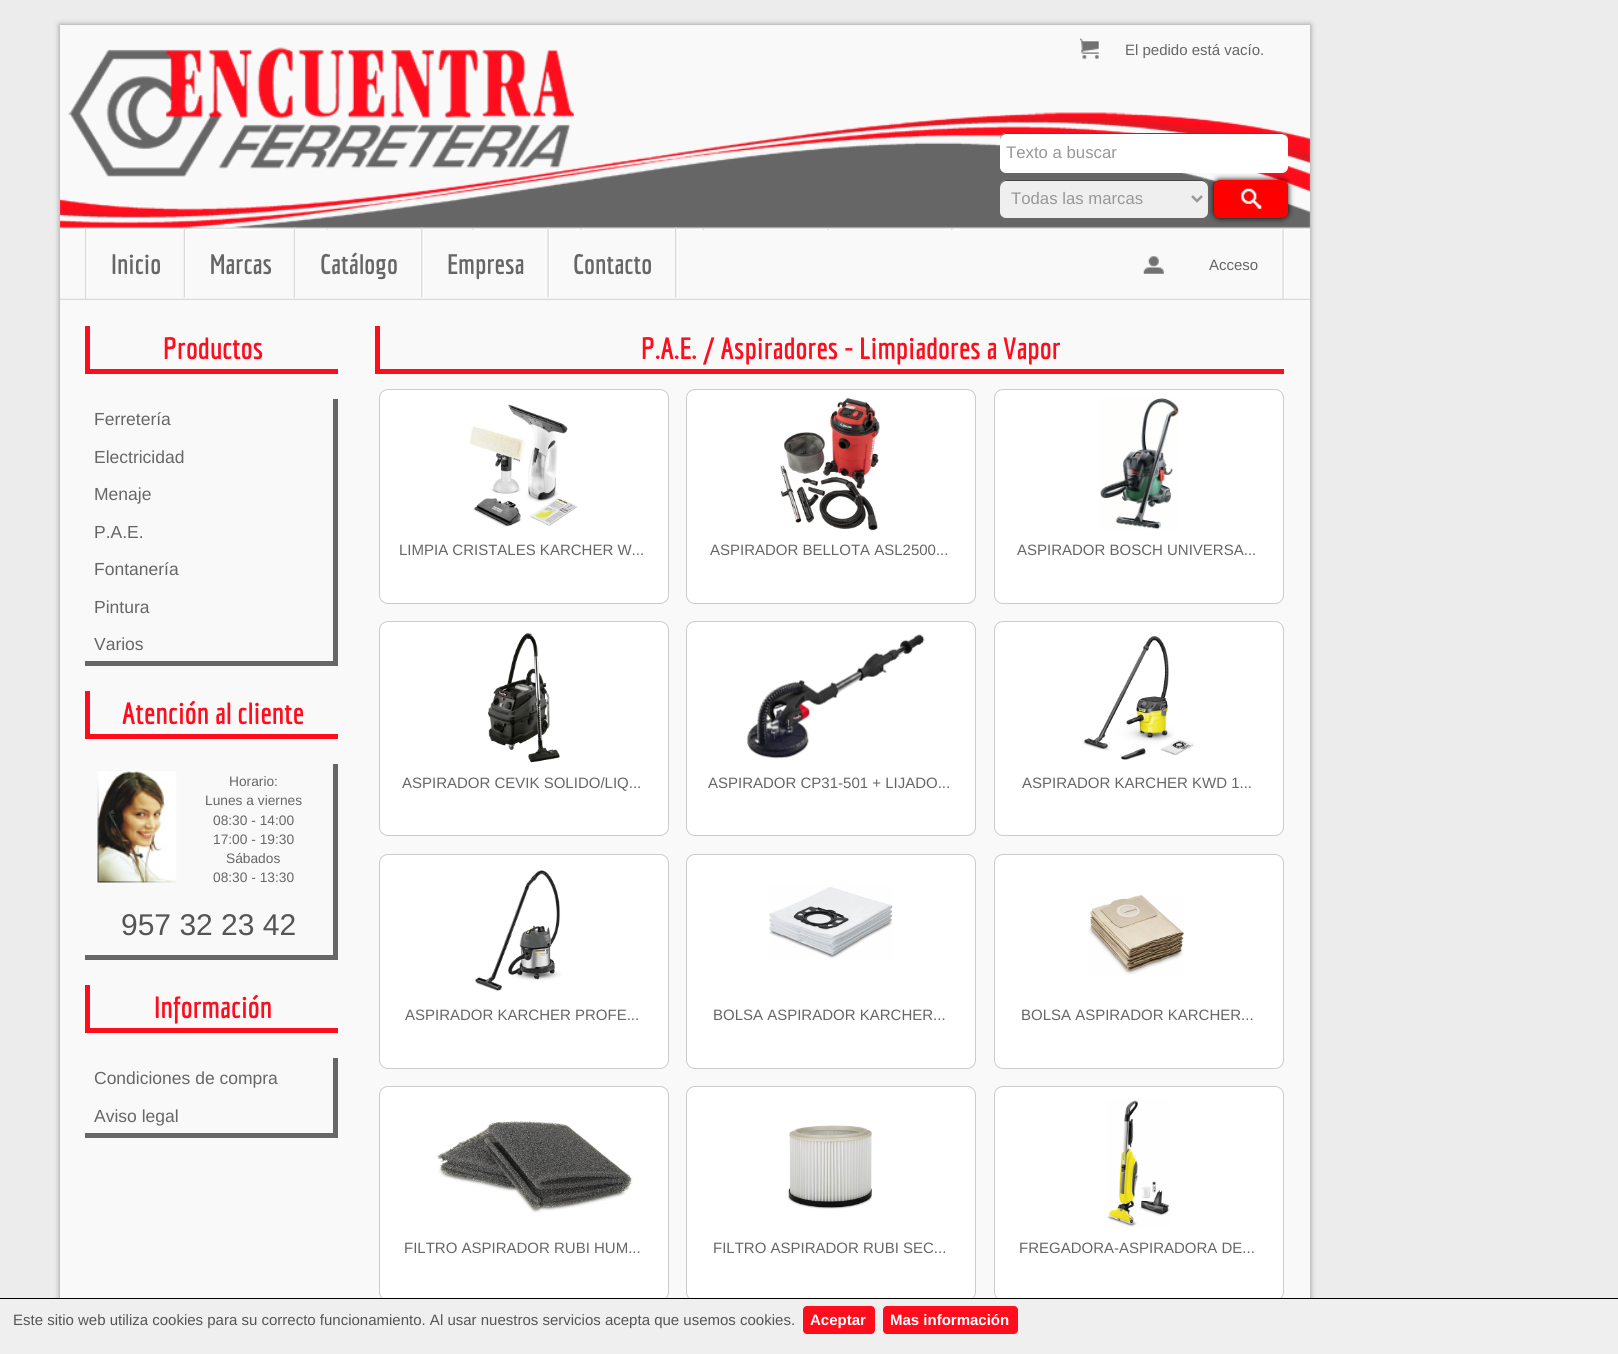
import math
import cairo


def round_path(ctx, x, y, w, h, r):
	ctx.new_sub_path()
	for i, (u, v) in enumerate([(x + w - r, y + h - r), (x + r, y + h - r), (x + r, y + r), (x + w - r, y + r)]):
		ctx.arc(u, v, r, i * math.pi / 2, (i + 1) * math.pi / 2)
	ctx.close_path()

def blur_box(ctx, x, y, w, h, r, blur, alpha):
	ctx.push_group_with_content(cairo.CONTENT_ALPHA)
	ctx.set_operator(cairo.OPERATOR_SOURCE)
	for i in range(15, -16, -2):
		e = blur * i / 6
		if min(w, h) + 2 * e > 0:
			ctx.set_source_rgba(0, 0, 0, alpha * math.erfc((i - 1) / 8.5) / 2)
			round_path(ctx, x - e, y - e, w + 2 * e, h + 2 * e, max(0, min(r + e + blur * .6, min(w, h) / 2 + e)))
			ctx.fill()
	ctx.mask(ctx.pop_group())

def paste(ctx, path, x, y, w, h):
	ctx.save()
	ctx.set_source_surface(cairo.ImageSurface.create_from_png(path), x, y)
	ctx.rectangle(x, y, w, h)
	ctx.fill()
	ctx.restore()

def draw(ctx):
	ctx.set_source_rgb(0.922, 0.922, 0.922)
	ctx.paint()
	ctx.set_source_rgb(0, 0, 0)
	blur_box(ctx, 60, 25, 1250, 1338, 0, 3, 0.4)
	ctx.set_source_rgb(0.973, 0.973, 0.973)
	ctx.rectangle(60, 25, 1250, 1273)
	ctx.fill()
	paste(ctx, 'media/1.png', 60, 47, 1250, 253)
	paste(ctx, 'media/2.png', 1080, 38, 20, 21)
	ctx.select_font_face('Liberation Sans')
	ctx.set_font_size(15)
	ctx.set_source_rgb(0.4, 0.4, 0.4)
	ctx.move_to(1125, 55)
	ctx.show_text('El pedido está vacío.')
	ctx.set_source_rgb(0.937, 0.937, 0.937)
	round_path(ctx, 1000, 180, 208, 38, 6)
	ctx.fill()
	ctx.set_source_rgba(0, 0, 0, 0.7)
	ctx.new_path()
	ctx.move_to(1006, 181)
	ctx.line_to(1201, 181)
	ctx.curve_to(1205, 181, 1208, 184, 1208, 188)
	ctx.line_to(1208, 186)
	ctx.curve_to(1208, 183, 1205, 180, 1202, 180)
	ctx.line_to(1006, 180)
	ctx.curve_to(1003, 180, 1000, 183, 1000, 186)
	ctx.line_to(1000, 188)
	ctx.curve_to(1000, 184, 1003, 181, 1006, 181)
	ctx.close_path()
	ctx.fill()
	ctx.set_source_rgb(0, 0, 0)
	blur_box(ctx, 1214, 180, 74, 38, 6, 3, 1)
	ctx.set_source_rgb(1, 1, 1)
	round_path(ctx, 1000, 133, 288, 40, 6)
	ctx.fill()
	ctx.set_source_rgba(0, 0, 0, 0.7)
	ctx.new_path()
	ctx.move_to(1006, 134)
	ctx.line_to(1281, 134)
	ctx.curve_to(1285, 134, 1288, 137, 1288, 140)
	ctx.line_to(1288, 139)
	ctx.curve_to(1288, 136, 1285, 133, 1282, 133)
	ctx.line_to(1006, 133)
	ctx.curve_to(1003, 133, 1000, 136, 1000, 139)
	ctx.line_to(1000, 140)
	ctx.curve_to(1000, 137, 1003, 134, 1006, 134)
	ctx.close_path()
	ctx.fill()
	ctx.set_font_size(16.75)
	ctx.set_source_rgb(0.592, 0.592, 0.592)
	ctx.move_to(1006, 158)
	ctx.show_text('Texto a buscar')
	ctx.new_path()
	ctx.move_to(1192, 196)
	ctx.line_to(1197, 201)
	ctx.line_to(1202, 196)
	ctx.set_line_width(2.5)
	ctx.stroke()
	ctx.move_to(1011, 204)
	ctx.show_text('Todas las marcas')
	ctx.set_source_rgb(1, 0, 0)
	round_path(ctx, 1214, 180, 74, 38, 6)
	ctx.fill()
	paste(ctx, 'media/3.png', 1241, 188, 21, 21)
	paste(ctx, 'media/4.png', 183, 227, 3, 71)
	ctx.select_font_face('Economica', cairo.FONT_SLANT_NORMAL, cairo.FONT_WEIGHT_BOLD)
	ctx.set_font_size(27.5)
	ctx.set_source_rgb(0.4, 0.4, 0.4)
	ctx.move_to(111, 274)
	ctx.show_text('Inicio')
	paste(ctx, 'media/5.png', 293, 227, 3, 71)
	ctx.move_to(210, 274)
	ctx.show_text('Marcas')
	paste(ctx, 'media/6.png', 421, 227, 3, 71)
	ctx.move_to(320, 274)
	ctx.show_text('Catálogo')
	paste(ctx, 'media/7.png', 547, 227, 3, 71)
	ctx.move_to(447, 274)
	ctx.show_text('Empresa')
	paste(ctx, 'media/8.png', 675, 227, 2, 71)
	ctx.move_to(573, 274)
	ctx.show_text('Contacto')
	paste(ctx, 'media/9.png', 1143, 256, 21, 18)
	ctx.select_font_face('Liberation Sans')
	ctx.set_font_size(15)
	ctx.move_to(1209, 270)
	ctx.show_text('Acceso')
	ctx.set_source_rgb(1, 0.051, 0.11)
	ctx.rectangle(85, 369, 253, 5)
	ctx.fill()
	ctx.rectangle(85, 326, 5, 48)
	ctx.fill()
	ctx.select_font_face('Economica', cairo.FONT_SLANT_NORMAL, cairo.FONT_WEIGHT_BOLD)
	ctx.set_font_size(30)
	ctx.move_to(163, 359)
	ctx.show_text('Productos')
	ctx.set_source_rgb(0.4, 0.4, 0.4)
	ctx.rectangle(333, 399, 5, 267)
	ctx.fill()
	ctx.rectangle(85, 661, 253, 5)
	ctx.fill()
	ctx.select_font_face('Liberation Sans')
	ctx.set_font_size(17.5)
	for x, y, s in [
		(94, 425, 'Ferretería'),
		(94, 463, 'Electricidad'),
		(94, 500, 'Menaje'),
		(94, 538, 'P.A.E.'),
		(94, 575, 'Fontanería'),
		(94, 613, 'Pintura'),
		(94, 650, 'Varios'),
	]:
		ctx.move_to(x, y)
		ctx.show_text(s)
	ctx.set_source_rgb(1, 0.051, 0.11)
	ctx.rectangle(85, 734, 253, 5)
	ctx.fill()
	ctx.rectangle(85, 691, 5, 48)
	ctx.fill()
	ctx.select_font_face('Economica', cairo.FONT_SLANT_NORMAL, cairo.FONT_WEIGHT_BOLD)
	ctx.set_font_size(30)
	ctx.move_to(122, 724)
	ctx.show_text('Atención al cliente')
	ctx.set_source_rgb(0.4, 0.4, 0.4)
	ctx.rectangle(333, 764, 5, 196)
	ctx.fill()
	ctx.rectangle(85, 955, 253, 5)
	ctx.fill()
	paste(ctx, 'media/10.png', 97, 771, 80, 112)
	ctx.select_font_face('Liberation Sans')
	ctx.set_font_size(13.75)
	for x, y, s in [
		(229, 786, 'Horario:'),
		(205, 805, 'Lunes a viernes'),
		(213, 825, '08:30 - 14:00'),
		(213, 844, '17:00 - 19:30'),
		(226, 863, 'Sábados'),
		(213, 882, '08:30 - 13:30'),
	]:
		ctx.move_to(x, y)
		ctx.show_text(s)
	ctx.set_font_size(30)
	ctx.set_source_rgb(0.333, 0.333, 0.333)
	ctx.move_to(121, 935)
	ctx.show_text('957 32 23 42')
	ctx.set_source_rgb(1, 0.051, 0.11)
	ctx.rectangle(85, 1028, 253, 5)
	ctx.fill()
	ctx.rectangle(85, 985, 5, 48)
	ctx.fill()
	ctx.select_font_face('Economica', cairo.FONT_SLANT_NORMAL, cairo.FONT_WEIGHT_BOLD)
	ctx.move_to(154, 1018)
	ctx.show_text('Información')
	ctx.set_source_rgb(0.4, 0.4, 0.4)
	ctx.rectangle(333, 1058, 5, 80)
	ctx.fill()
	ctx.rectangle(85, 1133, 253, 5)
	ctx.fill()
	ctx.select_font_face('Liberation Sans')
	ctx.set_font_size(17.5)
	ctx.move_to(94, 1084)
	ctx.show_text('Condiciones de compra')
	ctx.move_to(94, 1122)
	ctx.show_text('Aviso legal')
	ctx.set_source_rgb(1, 0.051, 0.11)
	ctx.rectangle(375, 369, 909, 5)
	ctx.fill()
	ctx.rectangle(375, 326, 5, 48)
	ctx.fill()
	ctx.select_font_face('Economica', cairo.FONT_SLANT_NORMAL, cairo.FONT_WEIGHT_BOLD)
	ctx.set_font_size(30)
	ctx.move_to(641, 359)
	ctx.show_text('P.A.E. / Aspiradores - Limpiadores a Vapor')
	ctx.set_source_rgb(1, 1, 1)
	round_path(ctx, 379.5, 389.5, 289, 214, 8.5)
	ctx.fill_preserve()
	ctx.set_source_rgb(0.8, 0.8, 0.8)
	ctx.set_line_width(1)
	ctx.stroke()
	paste(ctx, 'media/11.png', 469, 404, 109, 123)
	ctx.select_font_face('Liberation Sans')
	ctx.set_font_size(15)
	ctx.set_source_rgb(0.4, 0.4, 0.4)
	ctx.move_to(399, 555)
	ctx.show_text('LIMPIA CRISTALES KARCHER W...')
	ctx.set_source_rgb(1, 1, 1)
	round_path(ctx, 686.5, 389.5, 289, 214, 8.5)
	ctx.fill_preserve()
	ctx.set_source_rgb(0.8, 0.8, 0.8)
	ctx.stroke()
	paste(ctx, 'media/12.png', 780, 397, 100, 134)
	ctx.set_source_rgb(0.4, 0.4, 0.4)
	ctx.move_to(710, 555)
	ctx.show_text('ASPIRADOR BELLOTA ASL2500...')
	ctx.set_source_rgb(1, 1, 1)
	round_path(ctx, 994.5, 389.5, 289, 214, 8.5)
	ctx.fill_preserve()
	ctx.set_source_rgb(0.8, 0.8, 0.8)
	ctx.stroke()
	paste(ctx, 'media/13.png', 1100, 398, 79, 132)
	ctx.set_source_rgb(0.4, 0.4, 0.4)
	ctx.move_to(1017, 555)
	ctx.show_text('ASPIRADOR BOSCH UNIVERSA...')
	ctx.set_source_rgb(1, 1, 1)
	round_path(ctx, 379.5, 621.5, 289, 214, 8.5)
	ctx.fill_preserve()
	ctx.set_source_rgb(0.8, 0.8, 0.8)
	ctx.stroke()
	paste(ctx, 'media/14.png', 488, 633, 72, 130)
	ctx.set_source_rgb(0.4, 0.4, 0.4)
	ctx.move_to(402, 788)
	ctx.show_text('ASPIRADOR CEVIK SOLIDO/LIQ...')
	ctx.set_source_rgb(1, 1, 1)
	round_path(ctx, 686.5, 621.5, 289, 214, 8.5)
	ctx.fill_preserve()
	ctx.set_source_rgb(0.8, 0.8, 0.8)
	ctx.stroke()
	paste(ctx, 'media/15.png', 747, 634, 178, 125)
	ctx.set_source_rgb(0.4, 0.4, 0.4)
	ctx.move_to(708, 788)
	ctx.show_text('ASPIRADOR CP31-501 + LIJADO...')
	ctx.set_source_rgb(1, 1, 1)
	round_path(ctx, 994.5, 621.5, 289, 214, 8.5)
	ctx.fill_preserve()
	ctx.set_source_rgb(0.8, 0.8, 0.8)
	ctx.stroke()
	paste(ctx, 'media/16.png', 1082, 635, 112, 125)
	ctx.set_source_rgb(0.4, 0.4, 0.4)
	ctx.move_to(1022, 788)
	ctx.show_text('ASPIRADOR KARCHER KWD 1...')
	ctx.set_source_rgb(1, 1, 1)
	round_path(ctx, 379.5, 854.5, 289, 214, 8.5)
	ctx.fill_preserve()
	ctx.set_source_rgb(0.8, 0.8, 0.8)
	ctx.stroke()
	paste(ctx, 'media/17.png', 475, 870, 87, 121)
	ctx.set_source_rgb(0.4, 0.4, 0.4)
	ctx.move_to(405, 1020)
	ctx.show_text('ASPIRADOR KARCHER PROFE...')
	ctx.set_source_rgb(1, 1, 1)
	round_path(ctx, 686.5, 854.5, 289, 214, 8.5)
	ctx.fill_preserve()
	ctx.set_source_rgb(0.8, 0.8, 0.8)
	ctx.stroke()
	paste(ctx, 'media/18.png', 769, 886, 124, 73)
	ctx.set_source_rgb(0.4, 0.4, 0.4)
	ctx.move_to(713, 1020)
	ctx.show_text('BOLSA ASPIRADOR KARCHER...')
	ctx.set_source_rgb(1, 1, 1)
	round_path(ctx, 994.5, 854.5, 289, 214, 8.5)
	ctx.fill_preserve()
	ctx.set_source_rgb(0.8, 0.8, 0.8)
	ctx.stroke()
	paste(ctx, 'media/19.png', 1088, 895, 96, 80)
	ctx.set_source_rgb(0.4, 0.4, 0.4)
	ctx.move_to(1021, 1020)
	ctx.show_text('BOLSA ASPIRADOR KARCHER...')
	ctx.set_source_rgb(1, 1, 1)
	round_path(ctx, 379.5, 1086.5, 289, 214, 8.5)
	ctx.fill_preserve()
	ctx.set_source_rgb(0.8, 0.8, 0.8)
	ctx.stroke()
	paste(ctx, 'media/20.png', 437, 1120, 196, 93)
	ctx.set_source_rgb(0.4, 0.4, 0.4)
	ctx.move_to(404, 1253)
	ctx.show_text('FILTRO ASPIRADOR RUBI HUM...')
	ctx.set_source_rgb(1, 1, 1)
	round_path(ctx, 686.5, 1086.5, 289, 214, 8.5)
	ctx.fill_preserve()
	ctx.set_source_rgb(0.8, 0.8, 0.8)
	ctx.stroke()
	paste(ctx, 'media/21.png', 787, 1125, 85, 84)
	ctx.set_source_rgb(0.4, 0.4, 0.4)
	ctx.move_to(713, 1253)
	ctx.show_text('FILTRO ASPIRADOR RUBI SEC...')
	ctx.set_source_rgb(1, 1, 1)
	round_path(ctx, 994.5, 1086.5, 289, 214, 8.5)
	ctx.fill_preserve()
	ctx.set_source_rgb(0.8, 0.8, 0.8)
	ctx.stroke()
	paste(ctx, 'media/22.png', 1107, 1100, 64, 127)
	ctx.set_source_rgb(0.4, 0.4, 0.4)
	ctx.move_to(1019, 1253)
	ctx.show_text('FREGADORA-ASPIRADORA DE...')
	ctx.set_source_rgb(0.937, 0.937, 0.937)
	ctx.rectangle(0, 1299, 1618, 55)
	ctx.fill()
	ctx.set_source_rgb(0, 0, 0)
	ctx.rectangle(0, 1298, 1618, 1)
	ctx.fill()
	ctx.set_source_rgb(0.333, 0.333, 0.333)
	ctx.move_to(13, 1325)
	ctx.show_text('Este sitio web utiliza cookies para su correcto funcionamiento. Al usar nuestros servicios acepta que usemos cookies.')
	ctx.set_source_rgb(1, 0.051, 0.11)
	round_path(ctx, 803, 1306, 72, 28, 4)
	ctx.fill()
	ctx.select_font_face('Liberation Sans', cairo.FONT_SLANT_NORMAL, cairo.FONT_WEIGHT_BOLD)
	ctx.set_source_rgb(1, 1, 1)
	ctx.move_to(810, 1325)
	ctx.show_text('Aceptar')
	ctx.set_source_rgb(1, 0.051, 0.11)
	round_path(ctx, 883, 1306, 135, 28, 4)
	ctx.fill()
	ctx.set_source_rgb(1, 1, 1)
	ctx.move_to(890, 1325)
	ctx.show_text('Mas información')


surface = cairo.ImageSurface(cairo.FORMAT_RGB24, 1618, 1354)
ctx = cairo.Context(surface)
options = cairo.FontOptions()
options.set_hint_metrics(cairo.HINT_METRICS_OFF)
options.set_hint_style(cairo.HINT_STYLE_NONE)
ctx.set_font_options(options)
ctx.set_miter_limit(4)
draw(ctx)
surface.write_to_png('image.png')
